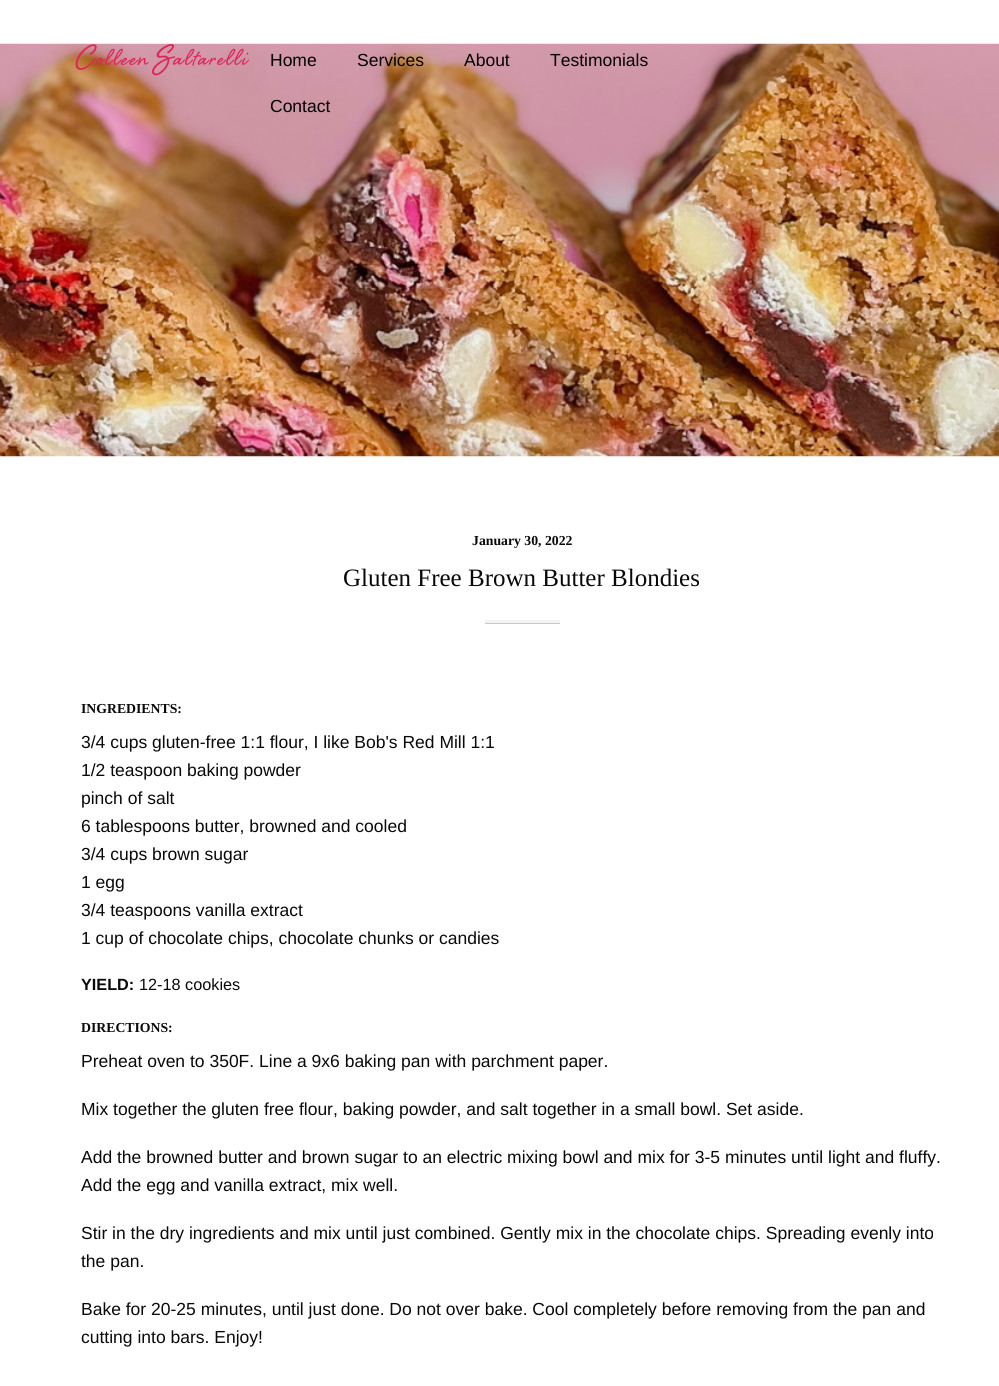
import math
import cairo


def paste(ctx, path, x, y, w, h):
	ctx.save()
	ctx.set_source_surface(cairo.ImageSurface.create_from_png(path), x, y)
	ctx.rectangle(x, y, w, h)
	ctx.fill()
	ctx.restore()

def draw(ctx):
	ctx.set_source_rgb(1, 1, 1)
	ctx.paint()
	paste(ctx, 'media/1.png', 0, 43, 999, 414)
	paste(ctx, 'media/2.png', 75, 44, 174, 32)
	ctx.select_font_face('Liberation Sans')
	ctx.set_font_size(17.5)
	ctx.set_source_rgb(0, 0, 0)
	for x, y, s in [
		(270, 66, 'Home'),
		(357, 66, 'Services'),
		(464, 66, 'About'),
		(550, 66, 'Testimonials'),
		(270, 112, 'Contact'),
	]:
		ctx.move_to(x, y)
		ctx.show_text(s)
	ctx.select_font_face('Liberation Serif', cairo.FONT_SLANT_NORMAL, cairo.FONT_WEIGHT_BOLD)
	ctx.set_font_size(13.75)
	ctx.set_source_rgb(0.039, 0.039, 0.039)
	ctx.move_to(472, 545)
	ctx.show_text('January 30, 2022')
	ctx.select_font_face('Liberation Serif')
	ctx.set_font_size(25)
	ctx.move_to(343, 586)
	ctx.show_text('Gluten Free Brown Butter Blondies')
	ctx.set_source_rgb(0.953, 0.953, 0.961)
	ctx.rectangle(485, 620, 75, 3)
	ctx.fill()
	ctx.set_source_rgb(0.792, 0.792, 0.792)
	ctx.rectangle(485, 623, 75, 1)
	ctx.fill()
	ctx.select_font_face('Liberation Serif', cairo.FONT_SLANT_NORMAL, cairo.FONT_WEIGHT_BOLD)
	ctx.set_font_size(13.75)
	ctx.set_source_rgb(0.039, 0.039, 0.039)
	ctx.move_to(81, 713)
	ctx.show_text('INGREDIENTS:')
	ctx.select_font_face('Liberation Sans')
	ctx.set_font_size(17.5)
	for x, y, s in [
		(81, 748, '3/4 cups gluten-free 1:1 flour, I like Bob\'s Red Mill 1:1'),
		(81, 776, '1/2 teaspoon baking powder'),
		(81, 804, 'pinch of salt'),
		(81, 832, '6 tablespoons butter, browned and cooled'),
		(81, 860, '3/4 cups brown sugar'),
		(81, 888, '1 egg'),
		(81, 916, '3/4 teaspoons vanilla extract'),
		(81, 944, '1 cup of chocolate chips, chocolate chunks or candies'),
	]:
		ctx.move_to(x, y)
		ctx.show_text(s)
	ctx.select_font_face('Liberation Sans', cairo.FONT_SLANT_NORMAL, cairo.FONT_WEIGHT_BOLD)
	ctx.set_font_size(16.25)
	ctx.move_to(81, 990)
	ctx.show_text('YIELD:')
	ctx.select_font_face('Liberation Sans')
	ctx.move_to(139, 990)
	ctx.show_text('12-18 cookies')
	ctx.select_font_face('Liberation Serif', cairo.FONT_SLANT_NORMAL, cairo.FONT_WEIGHT_BOLD)
	ctx.set_font_size(13.75)
	ctx.move_to(81, 1032)
	ctx.show_text('DIRECTIONS:')
	ctx.select_font_face('Liberation Sans')
	ctx.set_font_size(17.5)
	for x, y, s in [
		(81, 1067, 'Preheat oven to 350F. Line a 9x6 baking pan with parchment paper.'),
		(81, 1115, 'Mix together the gluten free flour, baking powder, and salt together in a small bowl. Set aside.'),
		(81, 1163, 'Add the browned butter and brown sugar to an electric mixing bowl and mix for 3-5 minutes until light and fluffy.'),
		(81, 1191, 'Add the egg and vanilla extract, mix well.'),
		(81, 1239, 'Stir in the dry ingredients and mix until just combined. Gently mix in the chocolate chips. Spreading evenly into'),
		(81, 1267, 'the pan.'),
		(81, 1315, 'Bake for 20-25 minutes, until just done. Do not over bake. Cool completely before removing from the pan and'),
		(81, 1343, 'cutting into bars. Enjoy!'),
	]:
		ctx.move_to(x, y)
		ctx.show_text(s)


surface = cairo.ImageSurface(cairo.FORMAT_RGB24, 999, 1386)
ctx = cairo.Context(surface)
options = cairo.FontOptions()
options.set_hint_metrics(cairo.HINT_METRICS_OFF)
options.set_hint_style(cairo.HINT_STYLE_NONE)
ctx.set_font_options(options)
ctx.set_miter_limit(4)
draw(ctx)
surface.write_to_png('image.png')
